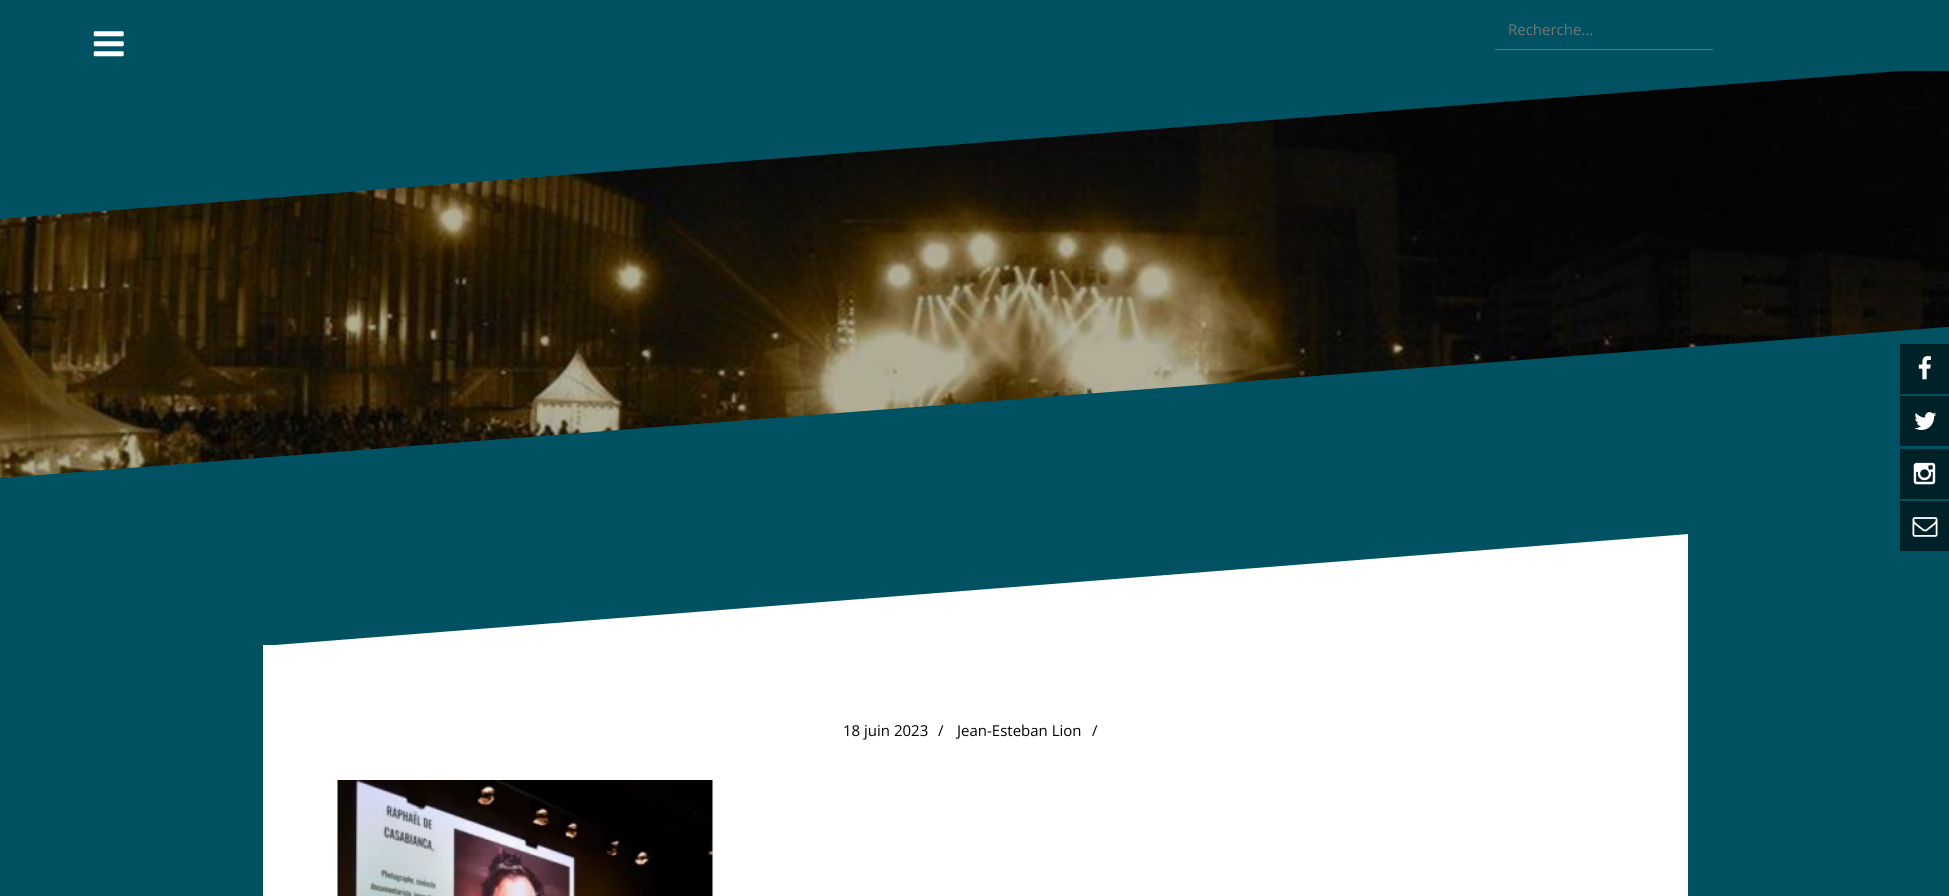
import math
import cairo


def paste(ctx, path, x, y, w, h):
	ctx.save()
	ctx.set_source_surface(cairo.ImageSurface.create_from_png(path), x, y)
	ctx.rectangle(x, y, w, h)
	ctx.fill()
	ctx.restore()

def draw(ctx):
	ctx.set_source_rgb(0, 0.322, 0.388)
	ctx.paint()
	ctx.set_source_rgb(0.435, 0.435, 0.435)
	ctx.rectangle(1495, 49, 218, 1)
	ctx.fill()
	ctx.select_font_face('Open Sans')
	ctx.set_font_size(15)
	ctx.set_source_rgb(0.459, 0.459, 0.459)
	ctx.move_to(1508, 35)
	ctx.show_text('Recherche…')
	paste(ctx, 'media/1.png', 93, 31, 31, 26)
	paste(ctx, 'media/2.png', 0, 71, 1949, 406)
	ctx.set_source_rgb(0, 0.322, 0.388)
	ctx.new_path()
	ctx.move_to(0, 219)
	ctx.line_to(0, 69)
	ctx.line_to(1925, 69)
	ctx.fill()
	ctx.new_path()
	ctx.move_to(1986, 324)
	ctx.line_to(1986, 478)
	ctx.line_to(0, 478)
	ctx.fill()
	ctx.set_source_rgb(1, 1, 1)
	ctx.rectangle(263, 645, 1425, 251)
	ctx.fill()
	ctx.save()
	ctx.rectangle(263, 533, 1425, 113)
	ctx.clip()
	ctx.new_path()
	ctx.move_to(1714, 532)
	ctx.line_to(1714, 646)
	ctx.line_to(262, 646)
	ctx.fill()
	ctx.restore()
	ctx.set_source_rgb(0.008, 0.008, 0.008)
	for x, y, s in [
		(843, 736, '18 juin 2023'),
		(938, 736, '/'),
		(957, 736, 'Jean-Esteban Lion'),
		(1092, 736, '/'),
	]:
		ctx.move_to(x, y)
		ctx.show_text(s)
	paste(ctx, 'media/3.png', 337, 780, 376, 116)
	ctx.set_source_rgb(0, 0.129, 0.157)
	ctx.rectangle(1900, 344, 49, 50)
	ctx.fill()
	paste(ctx, 'media/4.png', 1918, 356, 13, 24)
	ctx.rectangle(1900, 396, 49, 50)
	ctx.fill()
	paste(ctx, 'media/5.png', 1914, 412, 23, 18)
	ctx.rectangle(1900, 449, 49, 50)
	ctx.fill()
	paste(ctx, 'media/6.png', 1913, 462, 23, 23)
	ctx.rectangle(1900, 501, 49, 50)
	ctx.fill()
	paste(ctx, 'media/7.png', 1912, 517, 26, 20)


surface = cairo.ImageSurface(cairo.FORMAT_RGB24, 1949, 896)
ctx = cairo.Context(surface)
options = cairo.FontOptions()
options.set_hint_metrics(cairo.HINT_METRICS_OFF)
options.set_hint_style(cairo.HINT_STYLE_NONE)
ctx.set_font_options(options)
ctx.set_miter_limit(4)
draw(ctx)
surface.write_to_png('image.png')
